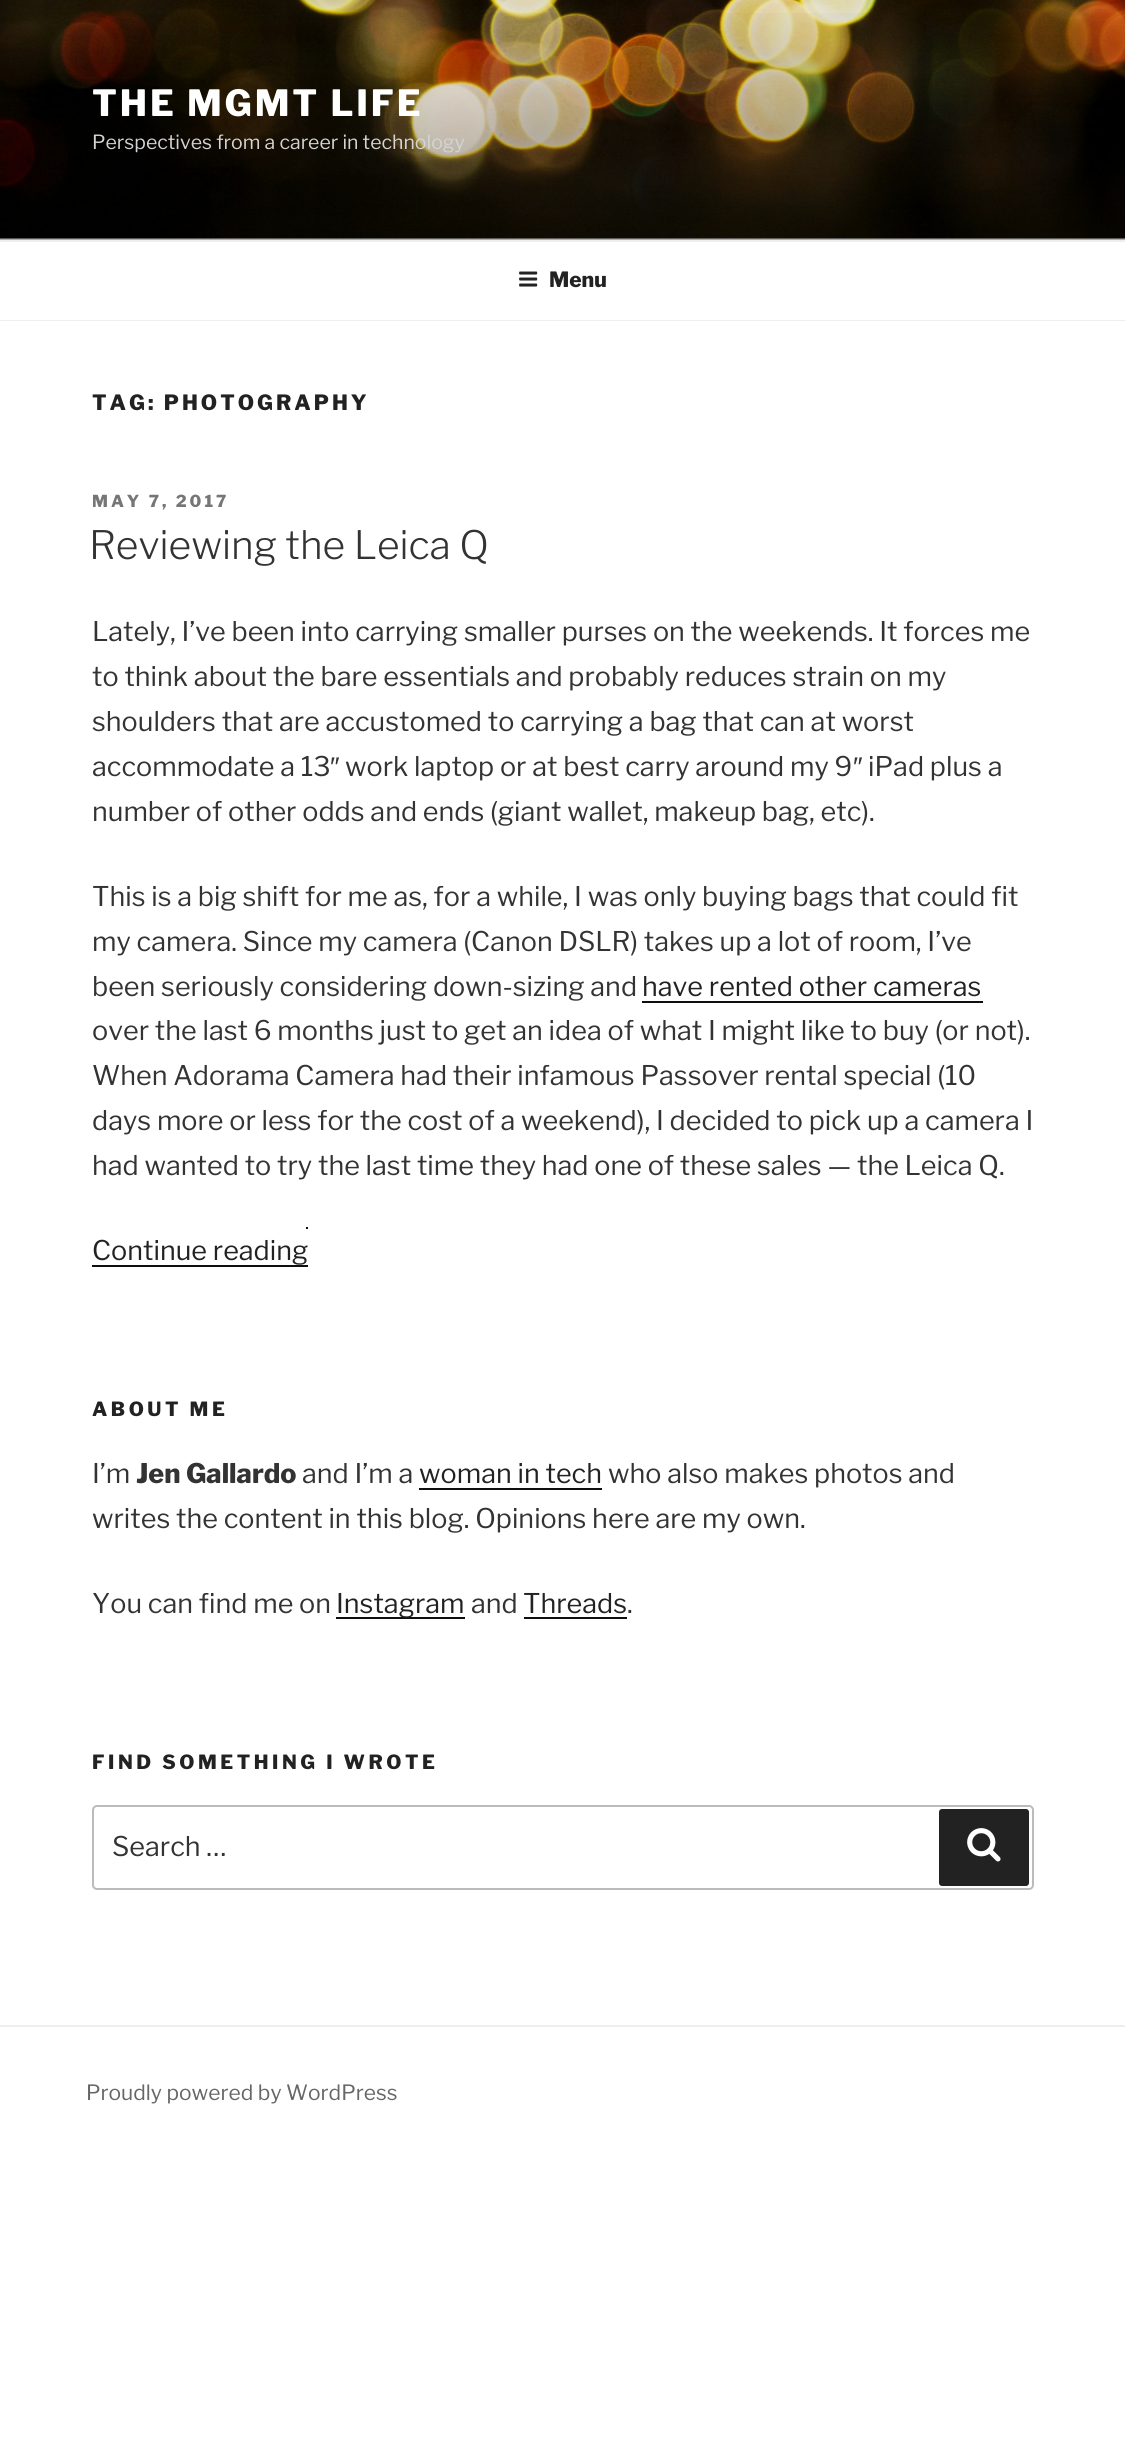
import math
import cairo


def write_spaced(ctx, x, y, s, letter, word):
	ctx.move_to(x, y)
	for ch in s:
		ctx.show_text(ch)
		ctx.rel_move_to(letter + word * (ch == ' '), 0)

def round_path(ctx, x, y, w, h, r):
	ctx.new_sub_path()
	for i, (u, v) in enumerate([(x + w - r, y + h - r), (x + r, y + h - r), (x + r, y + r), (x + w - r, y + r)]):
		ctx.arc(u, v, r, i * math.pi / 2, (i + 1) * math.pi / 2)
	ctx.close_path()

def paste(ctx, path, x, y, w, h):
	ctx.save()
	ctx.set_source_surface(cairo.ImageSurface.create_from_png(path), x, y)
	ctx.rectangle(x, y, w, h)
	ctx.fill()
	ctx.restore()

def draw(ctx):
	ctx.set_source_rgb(1, 1, 1)
	ctx.paint()
	ctx.set_source_rgb(0.98, 0.98, 0.98)
	ctx.rectangle(0, 238, 1125, 2)
	ctx.fill()
	paste(ctx, 'media/1.png', 0, 0, 1125, 239)
	gradient = cairo.LinearGradient(563, 0, 563, 240)
	gradient.add_color_stop_rgba(0, 0, 0, 0, 0)
	gradient.add_color_stop_rgba(0.75, 0, 0, 0, 0.3)
	gradient.add_color_stop_rgba(1, 0, 0, 0, 0.3)
	ctx.set_source(gradient)
	ctx.rectangle(0, 13, 1125, 227)
	ctx.fill()
	ctx.select_font_face('Libre Franklin Thin')
	ctx.set_font_size(36)
	ctx.set_source_rgb(1, 1, 1)
	write_spaced(ctx, 92, 116, 'THE MGMT LIFE', 2.9, 0)
	ctx.select_font_face('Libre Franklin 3 Thin')
	ctx.set_font_size(19.5)
	ctx.set_source_rgb(0.835, 0.831, 0.824)
	ctx.move_to(92, 149)
	ctx.show_text('Perspectives from a career in technology')
	ctx.set_source_rgb(0.933, 0.933, 0.933)
	ctx.rectangle(0, 240, 1125, 2)
	ctx.fill()
	ctx.rectangle(0, 320, 1125, 1)
	ctx.fill()
	paste(ctx, 'media/2.png', 519, 271, 19, 16)
	ctx.select_font_face('Libre Franklin Thin')
	ctx.set_font_size(21)
	ctx.set_source_rgb(0.133, 0.133, 0.133)
	ctx.move_to(549, 287)
	ctx.show_text('Menu')
	write_spaced(ctx, 92, 410, 'TAG: PHOTOGRAPHY', 3, 0)
	ctx.set_font_size(16.5)
	ctx.set_source_rgb(0.463, 0.463, 0.463)
	write_spaced(ctx, 92, 507, 'MAY 7, 2017', 3, 0)
	ctx.select_font_face('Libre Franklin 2 Thin')
	ctx.set_font_size(39)
	ctx.set_source_rgb(0.2, 0.2, 0.2)
	ctx.move_to(89, 559)
	ctx.show_text('Reviewing the Leica Q')
	ctx.select_font_face('Libre Franklin 3 Thin')
	ctx.set_font_size(27)
	for x, y, s in [
		(92, 641, 'Lately, I’ve been into carrying smaller purses on the weekends. It forces me'),
		(92, 686, 'to think about the bare essentials and probably reduces strain on my'),
		(92, 731, 'shoulders that are accustomed to carrying a bag that can at worst'),
		(92, 776, 'accommodate a 13'),
	]:
		ctx.move_to(x, y)
		ctx.show_text(s)
	ctx.select_font_face('Liberation Sans')
	ctx.move_to(330, 776)
	ctx.show_text('″')
	ctx.select_font_face('Libre Franklin 3 Thin')
	ctx.move_to(345, 776)
	ctx.show_text('work laptop or at best carry around my 9')
	ctx.select_font_face('Liberation Sans')
	ctx.move_to(853, 776)
	ctx.show_text('″')
	ctx.select_font_face('Libre Franklin 3 Thin')
	for x, y, s in [
		(868, 776, 'iPad plus a'),
		(92, 821, 'number of other odds and ends (giant wallet, makeup bag, etc).'),
		(92, 906, 'This is a big shift for me as, for a while, I was only buying bags that could fit'),
		(92, 951, 'my camera. Since my camera (Canon DSLR) takes up a lot of room, I’ve'),
		(92, 996, 'been seriously considering down-sizing and'),
	]:
		ctx.move_to(x, y)
		ctx.show_text(s)
	ctx.set_source_rgb(0.133, 0.133, 0.133)
	ctx.move_to(642, 996)
	ctx.show_text('have rented other cameras')
	ctx.set_source_rgb(0.059, 0.059, 0.059)
	ctx.rectangle(642, 1001, 341, 2)
	ctx.fill()
	ctx.set_source_rgb(0.2, 0.2, 0.2)
	for x, y, s in [
		(92, 1040, 'over the last 6 months just to get an idea of what I might like to buy (or not).'),
		(92, 1085, 'When Adorama Camera had their infamous Passover rental special (10'),
		(92, 1130, 'days more or less for the cost of a weekend), I decided to pick up a camera I'),
		(92, 1175, 'had wanted to try the last time they had one of these sales — the Leica Q.'),
	]:
		ctx.move_to(x, y)
		ctx.show_text(s)
	ctx.set_source_rgb(0.133, 0.133, 0.133)
	ctx.move_to(92, 1260)
	ctx.show_text('Continue reading')
	ctx.set_source_rgb(0.059, 0.059, 0.059)
	ctx.rectangle(92, 1265, 216, 2)
	ctx.fill()
	ctx.rectangle(306, 1227, 2, 2)
	ctx.fill()
	ctx.select_font_face('Libre Franklin Thin')
	ctx.set_font_size(19.5)
	ctx.set_source_rgb(0.133, 0.133, 0.133)
	write_spaced(ctx, 92, 1416, 'ABOUT ME', 3.55, 0)
	ctx.select_font_face('Libre Franklin 3 Thin')
	ctx.set_font_size(27)
	ctx.set_source_rgb(0.2, 0.2, 0.2)
	ctx.move_to(92, 1483)
	ctx.show_text('I’m')
	ctx.select_font_face('Libre Franklin Thin')
	ctx.move_to(136, 1483)
	ctx.show_text('Jen Gallardo')
	ctx.select_font_face('Libre Franklin 3 Thin')
	ctx.move_to(302, 1483)
	ctx.show_text('and I’m a')
	ctx.set_source_rgb(0.133, 0.133, 0.133)
	ctx.move_to(419, 1483)
	ctx.show_text('woman in tech')
	ctx.set_source_rgb(0.059, 0.059, 0.059)
	ctx.rectangle(419, 1488, 183, 2)
	ctx.fill()
	ctx.set_source_rgb(0.2, 0.2, 0.2)
	for x, y, s in [
		(608, 1483, 'who also makes photos and'),
		(92, 1528, 'writes the content in this blog. Opinions here are my own.'),
		(92, 1613, 'You can find me on'),
	]:
		ctx.move_to(x, y)
		ctx.show_text(s)
	ctx.set_source_rgb(0.059, 0.059, 0.059)
	ctx.rectangle(336, 1617, 129, 2)
	ctx.fill()
	ctx.set_source_rgb(0.133, 0.133, 0.133)
	ctx.move_to(336, 1613)
	ctx.show_text('Instagram')
	ctx.set_source_rgb(0.2, 0.2, 0.2)
	ctx.move_to(471, 1613)
	ctx.show_text('and')
	ctx.set_source_rgb(0.133, 0.133, 0.133)
	ctx.move_to(523, 1613)
	ctx.show_text('Threads')
	ctx.set_source_rgb(0.059, 0.059, 0.059)
	ctx.rectangle(524, 1617, 103, 2)
	ctx.fill()
	ctx.set_source_rgb(0.2, 0.2, 0.2)
	ctx.move_to(627, 1613)
	ctx.show_text('.')
	ctx.select_font_face('Libre Franklin Thin')
	ctx.set_font_size(19.5)
	ctx.set_source_rgb(0.133, 0.133, 0.133)
	write_spaced(ctx, 92, 1769, 'FIND SOMETHING I WROTE', 3.55, 0)
	round_path(ctx, 93, 1806, 940, 83, 4)
	ctx.set_source_rgb(0.733, 0.733, 0.733)
	ctx.stroke()
	ctx.select_font_face('Libre Franklin 3 Thin')
	ctx.set_font_size(27)
	ctx.set_source_rgb(0.2, 0.2, 0.2)
	ctx.move_to(112, 1856)
	ctx.show_text('Search …')
	ctx.set_source_rgb(0.133, 0.133, 0.133)
	round_path(ctx, 939, 1809, 90, 77, 3)
	ctx.fill()
	paste(ctx, 'media/3.png', 967, 1828, 34, 34)
	ctx.set_source_rgb(0.933, 0.933, 0.933)
	ctx.rectangle(0, 2025, 1125, 2)
	ctx.fill()
	ctx.set_font_size(21)
	ctx.set_source_rgb(0.4, 0.4, 0.4)
	ctx.move_to(86, 2100)
	ctx.show_text('Proudly powered by WordPress')


surface = cairo.ImageSurface(cairo.FORMAT_RGB24, 1125, 2452)
ctx = cairo.Context(surface)
options = cairo.FontOptions()
options.set_hint_metrics(cairo.HINT_METRICS_OFF)
options.set_hint_style(cairo.HINT_STYLE_NONE)
ctx.set_font_options(options)
ctx.set_miter_limit(4)
draw(ctx)
surface.write_to_png('image.png')
